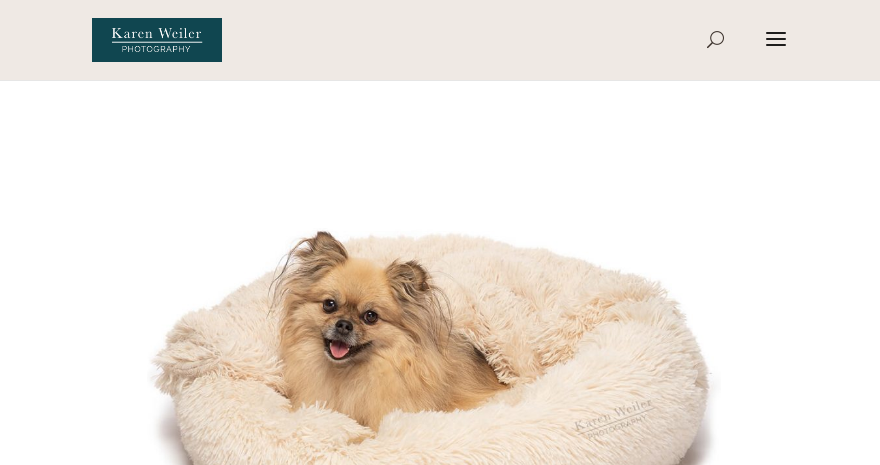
import math
import cairo


def paste(ctx, path, x, y, w, h):
	ctx.save()
	ctx.set_source_surface(cairo.ImageSurface.create_from_png(path), x, y)
	ctx.rectangle(x, y, w, h)
	ctx.fill()
	ctx.restore()

def draw(ctx):
	ctx.set_source_rgb(1, 1, 1)
	ctx.paint()
	ctx.set_source_rgb(0.902, 0.902, 0.902)
	ctx.rectangle(0, 80, 880, 1)
	ctx.fill()
	ctx.set_source_rgb(0.937, 0.914, 0.894)
	ctx.rectangle(0, 0, 880, 80)
	ctx.fill()
	paste(ctx, 'media/1.png', 92, 18, 130, 44)
	paste(ctx, 'media/2.png', 707, 31, 17, 18)
	paste(ctx, 'media/3.png', 766, 32, 20, 14)
	paste(ctx, 'media/4.png', 147, 228, 574, 237)


surface = cairo.ImageSurface(cairo.FORMAT_RGB24, 880, 465)
ctx = cairo.Context(surface)
options = cairo.FontOptions()
options.set_hint_metrics(cairo.HINT_METRICS_OFF)
options.set_hint_style(cairo.HINT_STYLE_NONE)
ctx.set_font_options(options)
ctx.set_miter_limit(4)
draw(ctx)
surface.write_to_png('image.png')
